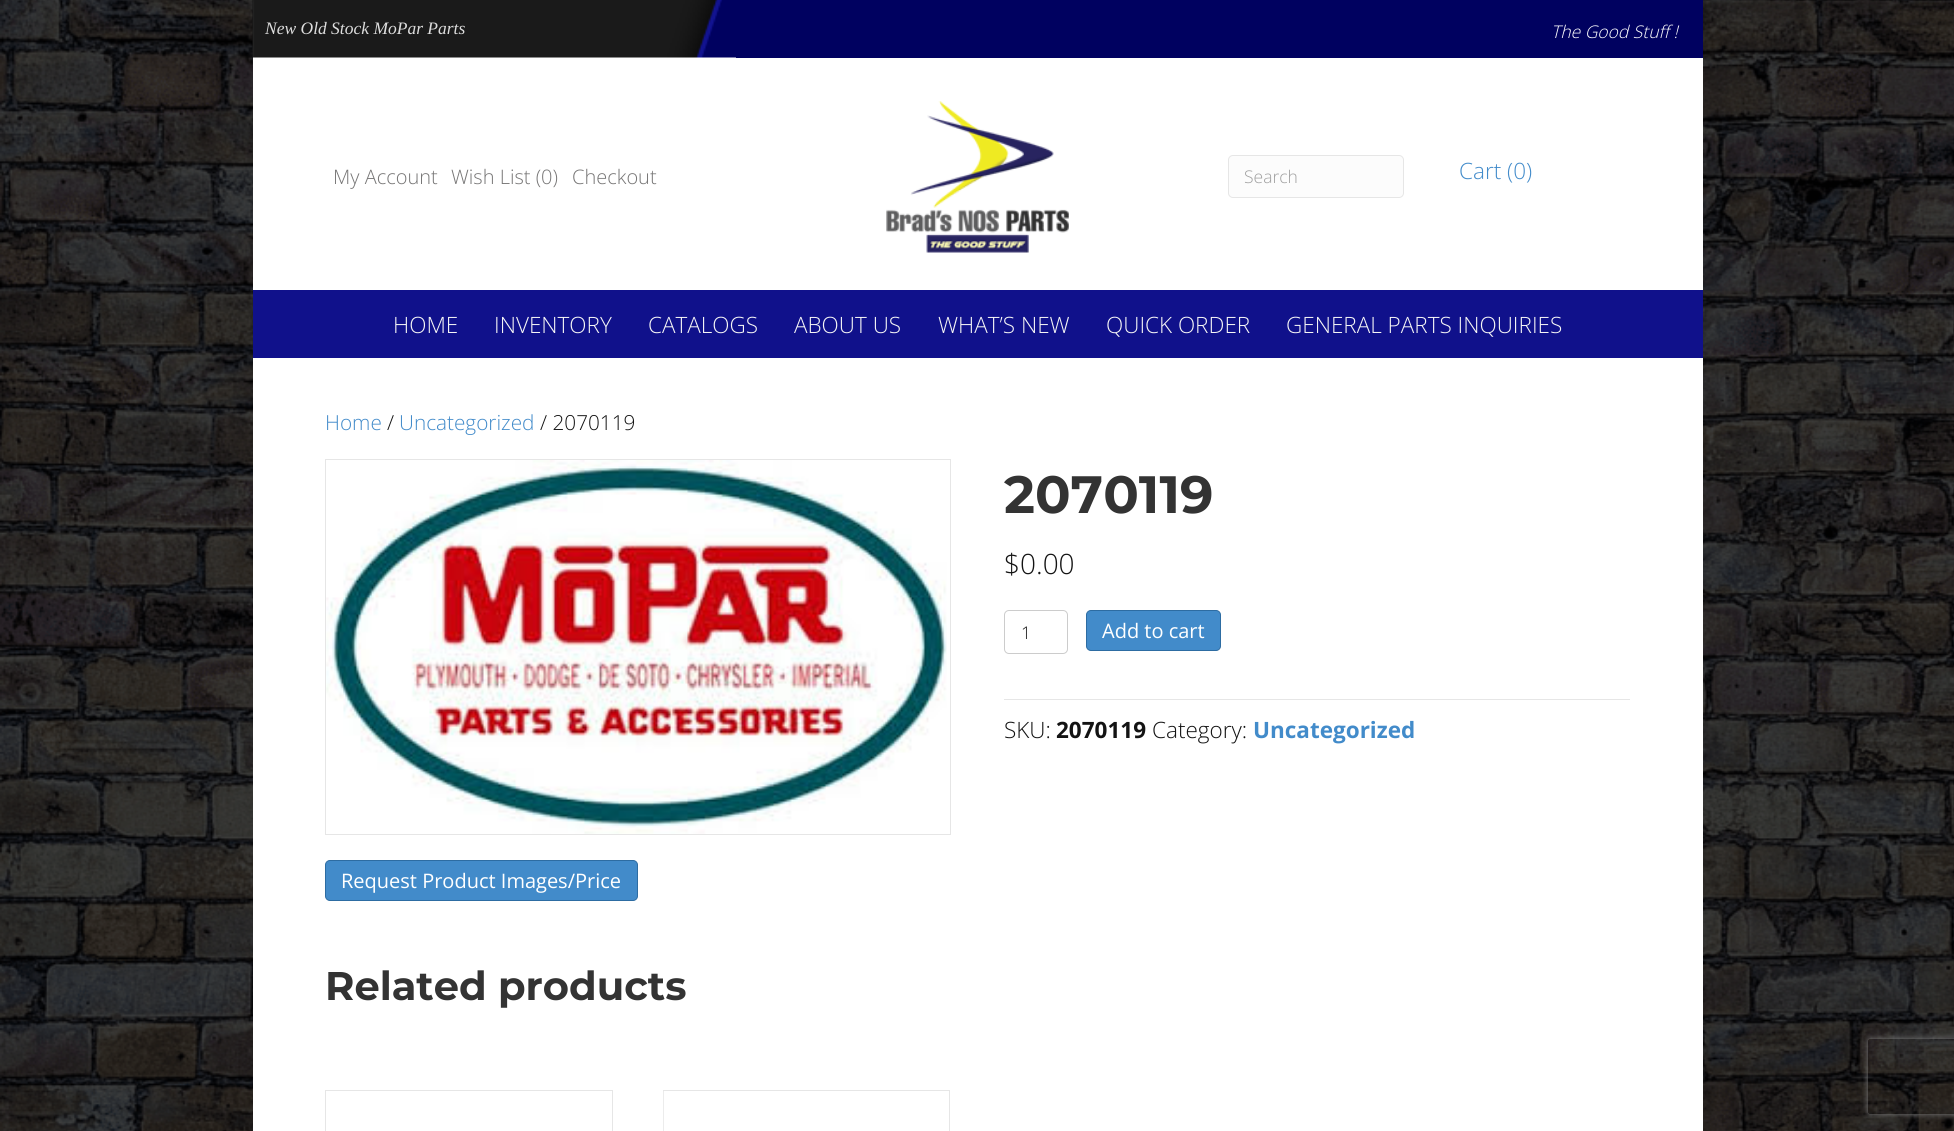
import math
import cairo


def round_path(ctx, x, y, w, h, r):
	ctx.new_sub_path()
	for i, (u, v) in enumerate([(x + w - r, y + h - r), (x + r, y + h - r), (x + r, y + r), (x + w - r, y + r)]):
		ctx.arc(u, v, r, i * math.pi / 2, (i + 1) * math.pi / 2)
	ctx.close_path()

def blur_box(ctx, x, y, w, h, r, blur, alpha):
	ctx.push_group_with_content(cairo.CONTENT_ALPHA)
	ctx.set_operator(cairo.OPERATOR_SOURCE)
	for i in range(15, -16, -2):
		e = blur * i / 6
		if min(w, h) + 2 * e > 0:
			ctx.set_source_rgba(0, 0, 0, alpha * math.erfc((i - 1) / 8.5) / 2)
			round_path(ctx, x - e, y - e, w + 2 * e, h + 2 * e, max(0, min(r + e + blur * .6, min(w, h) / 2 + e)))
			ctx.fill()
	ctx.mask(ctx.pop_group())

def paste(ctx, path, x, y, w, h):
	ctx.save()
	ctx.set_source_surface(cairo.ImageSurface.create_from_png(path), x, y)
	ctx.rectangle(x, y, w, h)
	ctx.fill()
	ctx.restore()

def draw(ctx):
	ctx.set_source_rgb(1, 1, 1)
	ctx.paint()
	paste(ctx, 'media/1.png', 0, 0, 1954, 1131)
	ctx.set_source_rgb(1, 1, 1)
	ctx.rectangle(253, 0, 483, 58)
	ctx.fill()
	paste(ctx, 'media/2.png', 252, 0, 484, 58)
	ctx.select_font_face('Liberation Serif', cairo.FONT_SLANT_ITALIC)
	ctx.set_font_size(17.5)
	ctx.set_source_rgb(0.867, 0.867, 0.867)
	ctx.move_to(265, 34)
	ctx.show_text('New Old Stock MoPar Parts')
	ctx.set_source_rgb(0, 0.004, 0.376)
	ctx.rectangle(736, 0, 967, 58)
	ctx.fill()
	ctx.select_font_face('Open Sans Light', cairo.FONT_SLANT_ITALIC)
	ctx.set_source_rgb(1, 1, 1)
	ctx.move_to(1551, 38)
	ctx.show_text('The Good Stuff !')
	ctx.rectangle(253, 58, 1450, 232)
	ctx.fill()
	ctx.select_font_face('Open Sans Light')
	ctx.set_font_size(20)
	ctx.set_source_rgb(0.463, 0.459, 0.459)
	for x, y, s in [
		(333, 184, 'My Account'),
		(451, 184, 'Wish List (0)'),
		(572, 184, 'Checkout'),
	]:
		ctx.move_to(x, y)
		ctx.show_text(s)
	paste(ctx, 'media/3.png', 886, 101, 183, 152)
	ctx.set_source_rgb(0.988, 0.988, 0.988)
	round_path(ctx, 1228.5, 155.5, 175, 42, 4.5)
	ctx.fill_preserve()
	ctx.set_source_rgb(0.902, 0.902, 0.902)
	ctx.set_line_width(1)
	ctx.stroke()
	ctx.set_font_size(17.5)
	ctx.set_source_rgb(0.624, 0.624, 0.624)
	ctx.move_to(1244, 183)
	ctx.show_text('Search')
	ctx.set_font_size(22.5)
	ctx.set_source_rgb(0.259, 0.545, 0.792)
	ctx.move_to(1459, 179)
	ctx.show_text('Cart (0)')
	ctx.set_source_rgb(0.063, 0.067, 0.545)
	ctx.rectangle(253, 290, 1450, 68)
	ctx.fill()
	ctx.set_source_rgb(0.961, 0.961, 0.961)
	for x, y, s in [
		(393, 333, 'HOME'),
		(494, 333, 'INVENTORY'),
		(648, 333, 'CATALOGS'),
		(794, 333, 'ABOUT US'),
		(938, 333, 'WHAT’S NEW'),
		(1106, 333, 'QUICK ORDER'),
		(1286, 333, 'GENERAL PARTS INQUIRIES'),
	]:
		ctx.move_to(x, y)
		ctx.show_text(s)
	ctx.set_source_rgb(1, 1, 1)
	ctx.rectangle(253, 358, 1450, 773)
	ctx.fill()
	ctx.set_font_size(20.75)
	ctx.set_source_rgb(0.259, 0.545, 0.792)
	ctx.move_to(325, 430)
	ctx.show_text('Home')
	ctx.set_source_rgb(0.078, 0.078, 0.078)
	ctx.move_to(387, 430)
	ctx.show_text('/')
	ctx.set_source_rgb(0.259, 0.545, 0.792)
	ctx.move_to(399, 430)
	ctx.show_text('Uncategorized')
	ctx.set_source_rgb(0.078, 0.078, 0.078)
	ctx.move_to(540, 430)
	ctx.show_text('/ 2070119')
	ctx.select_font_face('Montserrat Thin')
	ctx.set_font_size(52.5)
	ctx.set_source_rgb(0.2, 0.2, 0.2)
	ctx.move_to(1004, 513)
	ctx.show_text('2070119')
	ctx.select_font_face('Open Sans Light')
	ctx.set_font_size(28)
	ctx.set_source_rgb(0.078, 0.078, 0.078)
	ctx.move_to(1004, 574)
	ctx.show_text('$0.00')
	round_path(ctx, 1004.5, 610.5, 63, 43, 4.5)
	ctx.set_source_rgb(0.8, 0.8, 0.8)
	ctx.stroke()
	ctx.set_font_size(17.5)
	ctx.set_source_rgb(0.078, 0.078, 0.078)
	ctx.move_to(1021, 639)
	ctx.show_text('1')
	ctx.set_source_rgb(0.259, 0.545, 0.792)
	round_path(ctx, 1086.5, 610.5, 134, 40, 4.5)
	ctx.fill_preserve()
	ctx.set_source_rgb(0.176, 0.424, 0.635)
	ctx.stroke()
	ctx.select_font_face('Open Sans')
	ctx.set_font_size(20)
	ctx.set_source_rgb(1, 1, 1)
	ctx.move_to(1102, 638)
	ctx.show_text('Add to cart')
	ctx.set_source_rgb(0.902, 0.902, 0.902)
	ctx.rectangle(1004, 699, 626, 1)
	ctx.fill()
	ctx.select_font_face('Open Sans Light')
	ctx.set_font_size(22.5)
	ctx.set_source_rgb(0.078, 0.078, 0.078)
	ctx.move_to(1004, 738)
	ctx.show_text('SKU:')
	ctx.select_font_face('Open Sans', cairo.FONT_SLANT_NORMAL, cairo.FONT_WEIGHT_BOLD)
	ctx.move_to(1056, 738)
	ctx.show_text('2070119')
	ctx.select_font_face('Open Sans Light')
	ctx.move_to(1152, 738)
	ctx.show_text('Category:')
	ctx.select_font_face('Open Sans', cairo.FONT_SLANT_NORMAL, cairo.FONT_WEIGHT_BOLD)
	ctx.set_source_rgb(0.259, 0.545, 0.792)
	ctx.move_to(1253, 738)
	ctx.show_text('Uncategorized')
	ctx.rectangle(325.5, 459.5, 625, 375)
	ctx.set_source_rgb(0.902, 0.902, 0.902)
	ctx.stroke()
	paste(ctx, 'media/4.png', 326, 460, 621, 374)
	ctx.set_source_rgb(0.259, 0.545, 0.792)
	round_path(ctx, 325.5, 860.5, 312, 40, 4.5)
	ctx.fill_preserve()
	ctx.set_source_rgb(0.176, 0.424, 0.635)
	ctx.stroke()
	ctx.select_font_face('Open Sans')
	ctx.set_font_size(20)
	ctx.set_source_rgb(1, 1, 1)
	ctx.move_to(341, 888)
	ctx.show_text('Request Product Images/Price')
	ctx.select_font_face('Montserrat Thin')
	ctx.set_font_size(40)
	ctx.set_source_rgb(0.2, 0.2, 0.2)
	ctx.move_to(325, 1000)
	ctx.show_text('Related products')
	ctx.rectangle(325.5, 1090.5, 287, 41)
	ctx.set_source_rgb(0.902, 0.902, 0.902)
	ctx.stroke()
	ctx.rectangle(663.5, 1090.5, 286, 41)
	ctx.stroke()
	paste(ctx, 'media/5.png', 663, 1091, 1, 40)
	ctx.save()
	ctx.set_fill_rule(cairo.FILL_RULE_EVEN_ODD)
	ctx.new_path()
	ctx.move_to(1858, 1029)
	ctx.line_to(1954, 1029)
	ctx.line_to(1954, 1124)
	ctx.line_to(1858, 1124)
	ctx.close_path()
	ctx.move_to(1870.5, 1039)
	ctx.line_to(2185.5, 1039)
	ctx.curve_to(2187, 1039, 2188, 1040, 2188, 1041.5)
	ctx.line_to(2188, 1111.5)
	ctx.curve_to(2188, 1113, 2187, 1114, 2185.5, 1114)
	ctx.line_to(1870.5, 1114)
	ctx.curve_to(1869, 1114, 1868, 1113, 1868, 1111.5)
	ctx.line_to(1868, 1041.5)
	ctx.curve_to(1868, 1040, 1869, 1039, 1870.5, 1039)
	ctx.close_path()
	ctx.clip()
	ctx.set_source_rgb(0.502, 0.502, 0.502)
	blur_box(ctx, 1868, 1039, 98, 75, 2.5, 3, 1)
	ctx.restore()


surface = cairo.ImageSurface(cairo.FORMAT_RGB24, 1954, 1131)
ctx = cairo.Context(surface)
options = cairo.FontOptions()
options.set_hint_metrics(cairo.HINT_METRICS_OFF)
options.set_hint_style(cairo.HINT_STYLE_NONE)
ctx.set_font_options(options)
ctx.set_miter_limit(4)
draw(ctx)
surface.write_to_png('image.png')
